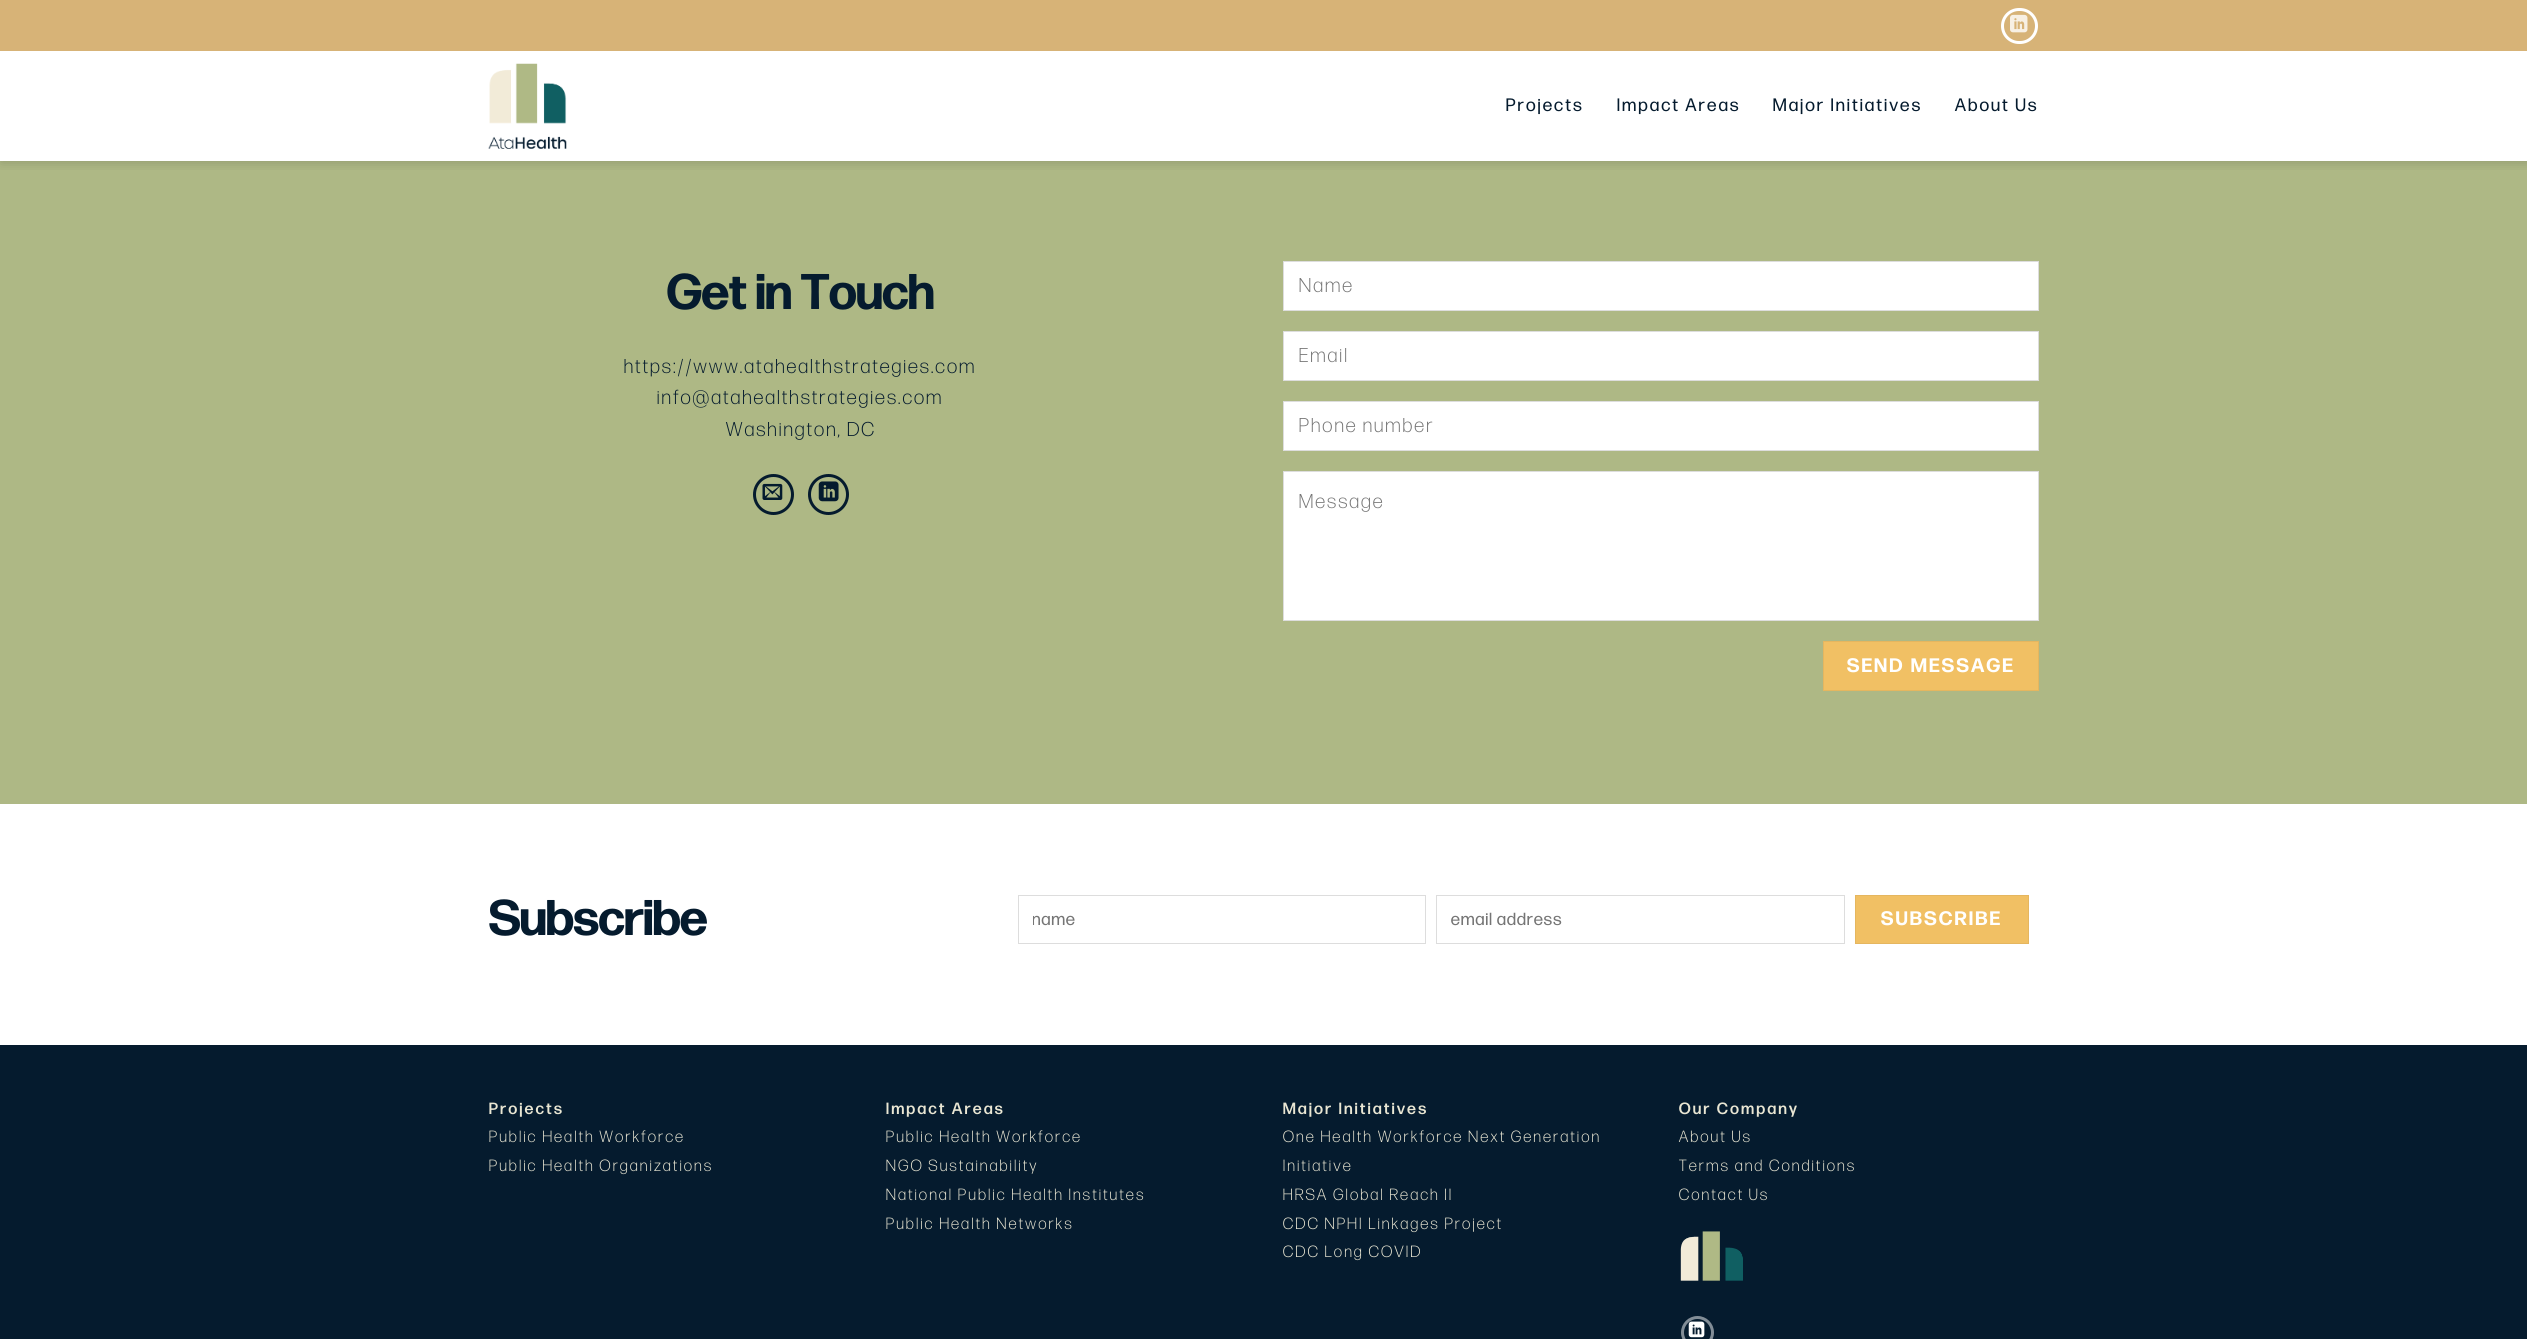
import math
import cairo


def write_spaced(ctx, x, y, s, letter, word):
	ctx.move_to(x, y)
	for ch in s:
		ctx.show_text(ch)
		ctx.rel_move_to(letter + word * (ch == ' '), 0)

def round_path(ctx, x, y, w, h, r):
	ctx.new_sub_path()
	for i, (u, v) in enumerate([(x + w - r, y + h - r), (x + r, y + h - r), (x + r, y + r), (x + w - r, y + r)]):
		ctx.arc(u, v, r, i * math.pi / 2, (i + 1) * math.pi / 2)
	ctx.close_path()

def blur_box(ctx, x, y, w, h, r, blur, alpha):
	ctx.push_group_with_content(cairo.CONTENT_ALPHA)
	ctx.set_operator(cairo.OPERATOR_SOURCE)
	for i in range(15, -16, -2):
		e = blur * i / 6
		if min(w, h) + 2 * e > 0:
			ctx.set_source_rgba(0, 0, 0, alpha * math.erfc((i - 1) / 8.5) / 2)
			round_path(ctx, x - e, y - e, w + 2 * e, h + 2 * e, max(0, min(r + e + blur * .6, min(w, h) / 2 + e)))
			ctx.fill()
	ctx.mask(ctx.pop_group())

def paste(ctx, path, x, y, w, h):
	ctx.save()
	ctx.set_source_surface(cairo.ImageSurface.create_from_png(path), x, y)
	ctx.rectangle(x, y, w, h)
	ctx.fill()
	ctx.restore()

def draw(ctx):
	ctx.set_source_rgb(1, 1, 1)
	ctx.paint()
	ctx.set_source_rgb(0.682, 0.722, 0.522)
	ctx.rectangle(0, 161, 2527, 643)
	ctx.fill()
	ctx.save()
	ctx.rectangle(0, 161, 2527, 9)
	ctx.clip()
	ctx.set_source_rgb(0, 0, 0)
	blur_box(ctx, 1, 1, 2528, 162, 0, 6, 0.15)
	ctx.restore()
	ctx.set_source_rgb(0.843, 0.702, 0.467)
	ctx.rectangle(0, 0, 2527, 51)
	ctx.fill()
	round_path(ctx, 2002.5, 9.5, 34, 33, 16.5)
	ctx.set_source_rgb(1, 1, 1)
	ctx.set_line_width(3)
	ctx.stroke()
	paste(ctx, 'media/1.png', 2010, 14, 18, 19)
	paste(ctx, 'media/2.png', 488, 63, 79, 86)
	ctx.select_font_face('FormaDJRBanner')
	ctx.set_font_size(18)
	ctx.set_source_rgb(0.02, 0.106, 0.18)
	for x, y, s in [
		(1506, 111, 'Projects'),
		(1617, 111, 'Impact Areas'),
		(1773, 111, 'Major Initiatives'),
		(1955, 111, 'About Us'),
	]:
		write_spaced(ctx, x, y, s, 2.5, 0)
	ctx.select_font_face('FormaDJRBanner', cairo.FONT_SLANT_NORMAL, cairo.FONT_WEIGHT_BOLD)
	ctx.set_font_size(50)
	ctx.move_to(667, 309)
	ctx.show_text('Get in Touch')
	ctx.select_font_face('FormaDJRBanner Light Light')
	ctx.set_font_size(20)
	for x, y, s in [
		(624, 373, 'https://www.atahealthstrategies.com'),
		(657, 404, 'info@atahealthstrategies.com'),
		(726, 436, 'Washington, DC'),
	]:
		write_spaced(ctx, x, y, s, 2.5, 0)
	ctx.new_path()
	ctx.arc(773.5, 494.5, 19, 0, 2 * math.pi)
	ctx.stroke()
	paste(ctx, 'media/3.png', 762, 483, 21, 17)
	ctx.arc(828.5, 494.5, 19, 0, 2 * math.pi)
	ctx.stroke()
	paste(ctx, 'media/4.png', 818, 481, 21, 21)
	ctx.set_source_rgb(1, 1, 1)
	ctx.rectangle(1283.5, 261.5, 755, 49)
	ctx.fill_preserve()
	ctx.set_source_rgb(0.867, 0.867, 0.867)
	ctx.set_line_width(1)
	ctx.stroke()
	ctx.set_source_rgb(0.459, 0.459, 0.459)
	write_spaced(ctx, 1299, 292, 'Name', 2.5, 0)
	ctx.set_source_rgb(1, 1, 1)
	ctx.rectangle(1283.5, 331.5, 755, 49)
	ctx.fill_preserve()
	ctx.set_source_rgb(0.867, 0.867, 0.867)
	ctx.stroke()
	ctx.set_source_rgb(0.459, 0.459, 0.459)
	write_spaced(ctx, 1299, 362, 'Email', 2.5, 0)
	ctx.set_source_rgb(1, 1, 1)
	ctx.rectangle(1283.5, 401.5, 755, 49)
	ctx.fill_preserve()
	ctx.set_source_rgb(0.867, 0.867, 0.867)
	ctx.stroke()
	ctx.set_source_rgb(0.459, 0.459, 0.459)
	write_spaced(ctx, 1299, 432, 'Phone number', 2.5, 0)
	ctx.set_source_rgb(1, 1, 1)
	ctx.rectangle(1283.5, 471.5, 755, 149)
	ctx.fill_preserve()
	ctx.set_source_rgb(0.867, 0.867, 0.867)
	ctx.stroke()
	ctx.set_source_rgb(0.459, 0.459, 0.459)
	write_spaced(ctx, 1299, 508, 'Message', 2.5, 0)
	ctx.set_source_rgb(0.945, 0.753, 0.392)
	ctx.rectangle(1823.5, 641.5, 215, 49)
	ctx.fill_preserve()
	ctx.set_source_rgb(0.898, 0.714, 0.373)
	ctx.stroke()
	ctx.select_font_face('FormaDJRBanner', cairo.FONT_SLANT_NORMAL, cairo.FONT_WEIGHT_BOLD)
	ctx.set_font_size(19.5)
	ctx.set_source_rgb(1, 1, 1)
	write_spaced(ctx, 1847, 672, 'SEND MESSAGE', 2.5, 0)
	ctx.set_font_size(50)
	ctx.set_source_rgb(0.02, 0.106, 0.18)
	ctx.move_to(489, 935)
	ctx.show_text('Subscribe')
	ctx.rectangle(1018.5, 895.5, 407, 48)
	ctx.set_source_rgb(0.867, 0.867, 0.867)
	ctx.stroke()
	ctx.save()
	ctx.rectangle(1033, 909, 380, 21)
	ctx.clip()
	ctx.select_font_face('FormaDJRBanner')
	ctx.set_font_size(17.5)
	ctx.set_source_rgb(0.459, 0.459, 0.459)
	write_spaced(ctx, 1032, 925, 'name', 1.25, 0)
	ctx.restore()
	ctx.rectangle(1436.5, 895.5, 408, 48)
	ctx.stroke()
	ctx.select_font_face('FormaDJRBanner')
	ctx.set_font_size(17.5)
	ctx.set_source_rgb(0.459, 0.459, 0.459)
	write_spaced(ctx, 1451, 925, 'email address', 1.25, 0)
	ctx.set_source_rgb(0.945, 0.753, 0.392)
	ctx.rectangle(1855.5, 895.5, 173, 48)
	ctx.fill_preserve()
	ctx.set_source_rgb(0.898, 0.714, 0.373)
	ctx.stroke()
	ctx.select_font_face('FormaDJRBanner', cairo.FONT_SLANT_NORMAL, cairo.FONT_WEIGHT_BOLD)
	ctx.set_font_size(19.5)
	ctx.set_source_rgb(1, 1, 1)
	write_spaced(ctx, 1881, 925, 'SUBSCRIBE', 2.5, 0)
	ctx.set_source_rgb(0.02, 0.106, 0.18)
	ctx.rectangle(0, 1045, 2527, 294)
	ctx.fill()
	ctx.select_font_face('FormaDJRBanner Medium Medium')
	ctx.set_font_size(16.25)
	ctx.set_source_rgb(0.914, 0.902, 0.827)
	write_spaced(ctx, 489, 1114, 'Projects', 2.5, 0)
	ctx.select_font_face('FormaDJRBanner Light Light')
	write_spaced(ctx, 489, 1142, 'Public Health Workforce', 2.5, 0)
	write_spaced(ctx, 489, 1171, 'Public Health Organizations', 2.5, 0)
	ctx.select_font_face('FormaDJRBanner Medium Medium')
	write_spaced(ctx, 886, 1114, 'Impact Areas', 2.5, 0)
	ctx.select_font_face('FormaDJRBanner Light Light')
	for x, y, s in [
		(886, 1142, 'Public Health Workforce'),
		(886, 1171, 'NGO Sustainability'),
		(886, 1200, 'National Public Health Institutes'),
		(886, 1229, 'Public Health Networks'),
	]:
		write_spaced(ctx, x, y, s, 2.5, 0)
	ctx.select_font_face('FormaDJRBanner Medium Medium')
	write_spaced(ctx, 1283, 1114, 'Major Initiatives', 2.5, 0)
	ctx.select_font_face('FormaDJRBanner Light Light')
	for x, y, s in [
		(1283, 1142, 'One Health Workforce Next Generation'),
		(1283, 1171, 'Initiative'),
		(1283, 1200, 'HRSA Global Reach II'),
		(1283, 1229, 'CDC NPHI Linkages Project'),
		(1283, 1257, 'CDC Long COVID'),
	]:
		write_spaced(ctx, x, y, s, 2.5, 0)
	ctx.select_font_face('FormaDJRBanner Medium Medium')
	write_spaced(ctx, 1679, 1114, 'Our Company', 2.5, 0)
	ctx.select_font_face('FormaDJRBanner Light Light')
	for x, y, s in [
		(1679, 1142, 'About Us'),
		(1679, 1171, 'Terms and Conditions'),
		(1679, 1200, 'Contact Us'),
	]:
		write_spaced(ctx, x, y, s, 2.5, 0)
	paste(ctx, 'media/5.png', 1680, 1231, 63, 50)
	ctx.arc(1697.5, 1332.5, 15, 0, 2 * math.pi)
	ctx.set_source_rgb(0.51, 0.553, 0.592)
	ctx.set_line_width(3)
	ctx.stroke()
	paste(ctx, 'media/6.png', 1688, 1321, 17, 17)


surface = cairo.ImageSurface(cairo.FORMAT_RGB24, 2527, 1339)
ctx = cairo.Context(surface)
options = cairo.FontOptions()
options.set_hint_metrics(cairo.HINT_METRICS_OFF)
options.set_hint_style(cairo.HINT_STYLE_NONE)
ctx.set_font_options(options)
ctx.set_miter_limit(4)
draw(ctx)
surface.write_to_png('image.png')
